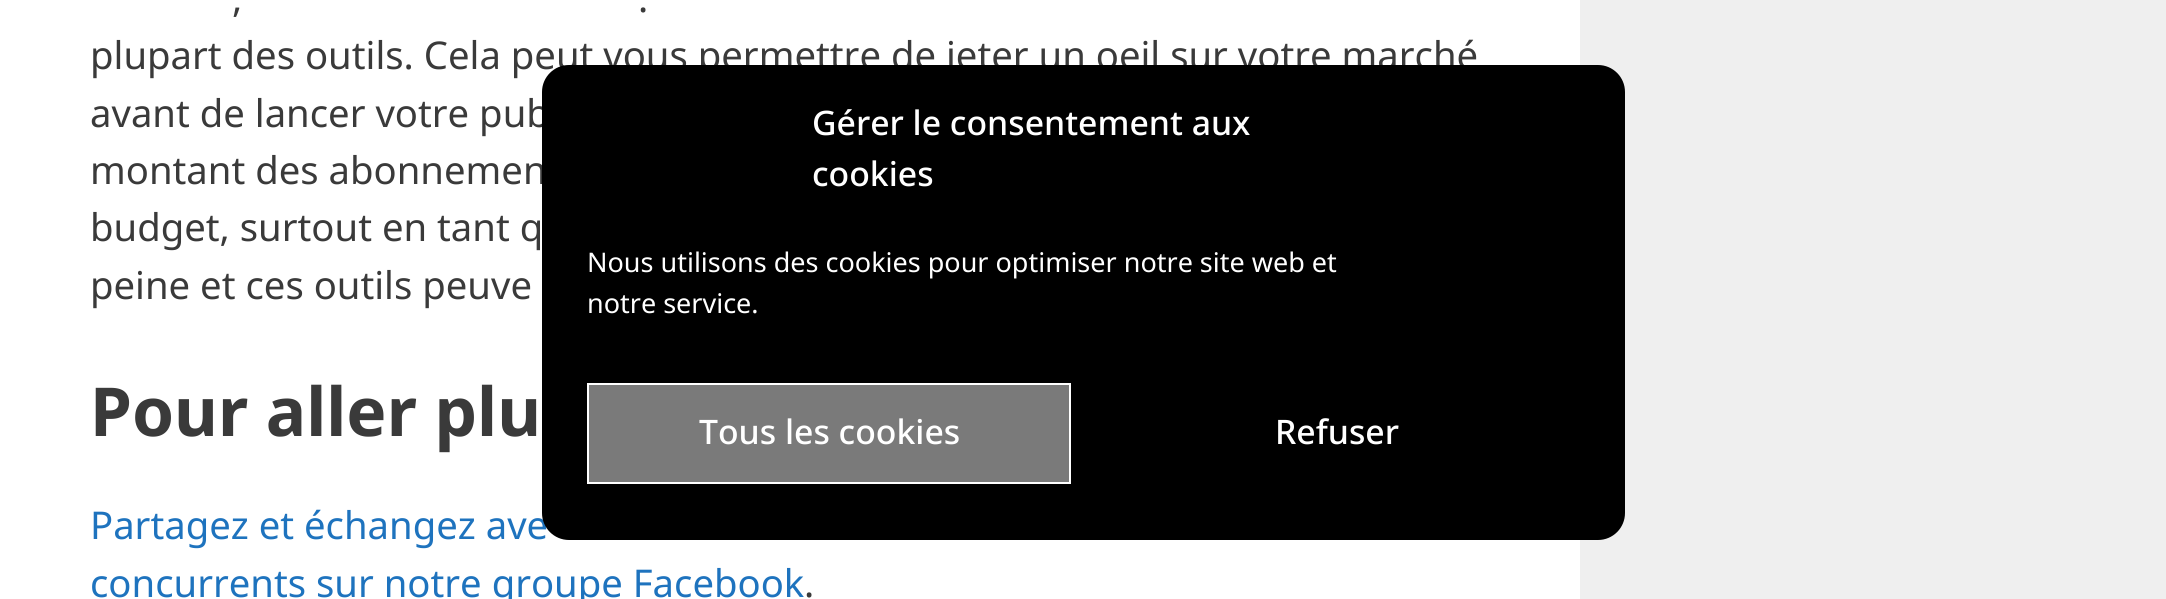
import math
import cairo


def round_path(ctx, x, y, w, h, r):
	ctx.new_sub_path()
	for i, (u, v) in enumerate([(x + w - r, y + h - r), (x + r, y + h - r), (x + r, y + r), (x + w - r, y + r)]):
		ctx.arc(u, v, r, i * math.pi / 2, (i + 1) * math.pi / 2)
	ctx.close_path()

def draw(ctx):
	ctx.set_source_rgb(0.937, 0.937, 0.937)
	ctx.paint()
	ctx.set_source_rgb(1, 1, 1)
	ctx.rectangle(0, 0, 1580, 599)
	ctx.fill()
	ctx.select_font_face('Noto Sans')
	ctx.set_font_size(38.25)
	ctx.set_source_rgb(0.227, 0.227, 0.227)
	for x, y, s in [
		(232, 12, ','),
		(638, 12, '.'),
		(90, 69, 'plupart des outils. Cela peut vous permettre de jeter un oeil sur votre marché'),
		(90, 127, 'avant de lancer votre pub'),
		(90, 184, 'montant des abonnemen'),
		(90, 241, 'budget, surtout en tant q'),
		(90, 299, 'peine et ces outils peuve'),
	]:
		ctx.move_to(x, y)
		ctx.show_text(s)
	ctx.select_font_face('Noto Sans', cairo.FONT_SLANT_NORMAL, cairo.FONT_WEIGHT_BOLD)
	ctx.set_font_size(67.5)
	ctx.move_to(90, 436)
	ctx.show_text('Pour aller plu')
	ctx.select_font_face('Noto Sans')
	ctx.set_font_size(38.25)
	ctx.set_source_rgb(0.118, 0.451, 0.745)
	ctx.move_to(90, 539)
	ctx.show_text('Partagez et échangez ave')
	ctx.move_to(90, 597)
	ctx.show_text('concurrents sur notre groupe Facebook')
	ctx.set_source_rgb(0.227, 0.227, 0.227)
	ctx.move_to(804, 597)
	ctx.show_text('.')
	ctx.set_source_rgb(0, 0, 0)
	round_path(ctx, 542, 65, 1083, 475, 27)
	ctx.fill()
	ctx.select_font_face('Noto Sans Medium')
	ctx.set_font_size(33.75)
	ctx.set_source_rgb(1, 1, 1)
	ctx.move_to(812, 135)
	ctx.show_text('Gérer le consentement aux')
	ctx.move_to(812, 186)
	ctx.show_text('cookies')
	ctx.select_font_face('Noto Sans')
	ctx.set_font_size(27)
	ctx.move_to(587, 272)
	ctx.show_text('Nous utilisons des cookies pour optimiser notre site web et')
	ctx.move_to(587, 313)
	ctx.show_text('notre service.')
	ctx.set_source_rgb(0.478, 0.478, 0.478)
	ctx.rectangle(588, 384, 482, 99)
	ctx.fill_preserve()
	ctx.set_source_rgb(1, 1, 1)
	ctx.stroke()
	ctx.select_font_face('Noto Sans Medium')
	ctx.set_font_size(33.75)
	ctx.move_to(699, 444)
	ctx.show_text('Tous les cookies')
	ctx.move_to(1275, 444)
	ctx.show_text('Refuser')


surface = cairo.ImageSurface(cairo.FORMAT_RGB24, 2166, 599)
ctx = cairo.Context(surface)
options = cairo.FontOptions()
options.set_hint_metrics(cairo.HINT_METRICS_OFF)
options.set_hint_style(cairo.HINT_STYLE_NONE)
ctx.set_font_options(options)
ctx.set_miter_limit(4)
draw(ctx)
surface.write_to_png('image.png')
